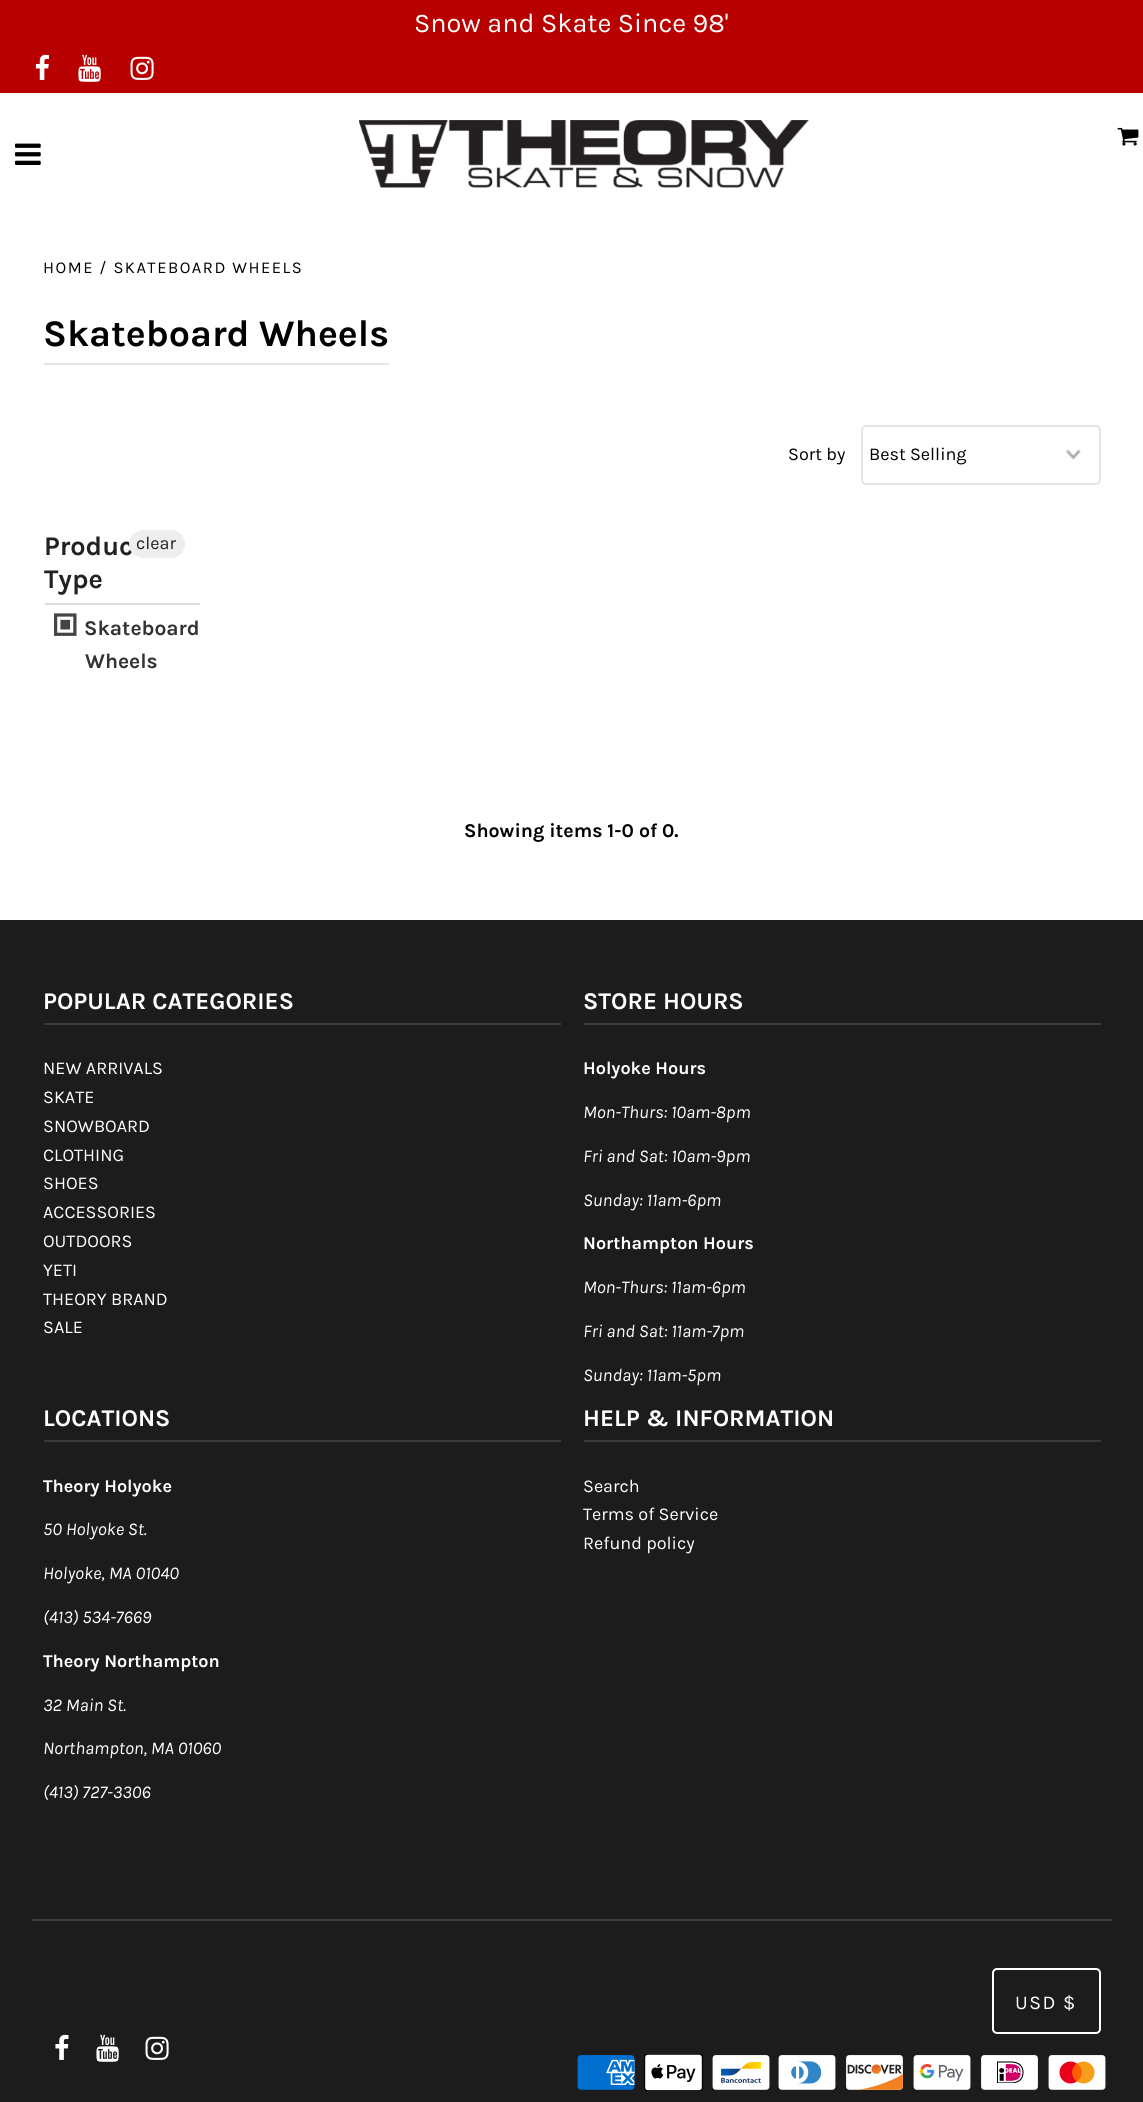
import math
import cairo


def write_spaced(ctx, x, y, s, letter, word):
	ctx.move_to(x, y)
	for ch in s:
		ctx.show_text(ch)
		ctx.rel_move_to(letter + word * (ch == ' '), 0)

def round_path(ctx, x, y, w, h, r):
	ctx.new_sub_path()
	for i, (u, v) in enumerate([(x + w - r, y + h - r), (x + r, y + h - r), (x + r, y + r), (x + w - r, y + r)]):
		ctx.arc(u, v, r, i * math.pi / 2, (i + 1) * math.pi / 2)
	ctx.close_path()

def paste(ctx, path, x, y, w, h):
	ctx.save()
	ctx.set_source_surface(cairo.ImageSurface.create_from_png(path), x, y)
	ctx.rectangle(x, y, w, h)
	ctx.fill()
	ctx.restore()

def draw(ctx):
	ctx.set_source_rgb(1, 1, 1)
	ctx.paint()
	ctx.set_source_rgb(0.722, 0, 0)
	ctx.rectangle(0, 0, 1143, 93)
	ctx.fill()
	ctx.select_font_face('Karla')
	ctx.set_font_size(27)
	ctx.set_source_rgb(1, 1, 1)
	ctx.move_to(414, 32)
	ctx.show_text('Snow and Skate Since 98\'')
	paste(ctx, 'media/1.png', 35, 54, 14, 26)
	paste(ctx, 'media/2.png', 78, 54, 23, 28)
	paste(ctx, 'media/3.png', 130, 56, 24, 24)
	paste(ctx, 'media/4.png', 359, 120, 450, 68)
	paste(ctx, 'media/5.png', 1117, 127, 22, 19)
	paste(ctx, 'media/6.png', 15, 143, 26, 22)
	ctx.set_font_size(16.5)
	ctx.set_source_rgb(0, 0, 0)
	write_spaced(ctx, 43, 273, 'HOME / SKATEBOARD WHEELS', 1.5, 0)
	ctx.set_source_rgb(0.898, 0.898, 0.898)
	ctx.rectangle(44, 363, 345, 2)
	ctx.fill()
	ctx.select_font_face('Karla', cairo.FONT_SLANT_NORMAL, cairo.FONT_WEIGHT_BOLD)
	ctx.set_font_size(37.5)
	ctx.set_source_rgb(0, 0, 0)
	ctx.move_to(43, 346)
	ctx.show_text('Skateboard Wheels')
	ctx.select_font_face('Karla')
	ctx.set_font_size(18)
	ctx.move_to(788, 460)
	ctx.show_text('Sort by')
	paste(ctx, 'media/7.png', 1066, 449, 15, 11)
	round_path(ctx, 862, 426, 238, 58, 4)
	ctx.set_source_rgb(0.898, 0.898, 0.898)
	ctx.stroke()
	ctx.set_source_rgb(0, 0, 0)
	ctx.move_to(869, 460)
	ctx.show_text('Best Selling')
	ctx.set_source_rgb(0.867, 0.867, 0.867)
	ctx.rectangle(45, 603, 155, 2)
	ctx.fill()
	ctx.select_font_face('Karla', cairo.FONT_SLANT_NORMAL, cairo.FONT_WEIGHT_BOLD)
	ctx.set_font_size(27)
	ctx.set_source_rgb(0.133, 0.133, 0.133)
	ctx.move_to(44, 555)
	ctx.show_text('Produc')
	ctx.move_to(44, 588)
	ctx.show_text('Type')
	ctx.set_source_rgb(0.933, 0.933, 0.933)
	round_path(ctx, 129, 530, 56, 28, 14)
	ctx.fill()
	ctx.select_font_face('Karla')
	ctx.set_font_size(18)
	ctx.set_source_rgb(0.133, 0.133, 0.133)
	ctx.move_to(136, 549)
	ctx.show_text('clear')
	paste(ctx, 'media/8.png', 54, 613, 23, 23)
	ctx.select_font_face('Karla', cairo.FONT_SLANT_NORMAL, cairo.FONT_WEIGHT_BOLD)
	ctx.set_font_size(21)
	ctx.set_source_rgb(0.2, 0.2, 0.2)
	ctx.move_to(84, 635)
	ctx.show_text('Skateboard')
	ctx.move_to(85, 668)
	ctx.show_text('Wheels')
	ctx.set_font_size(19.5)
	ctx.set_source_rgb(0, 0, 0)
	ctx.move_to(464, 837)
	ctx.show_text('Showing items 1-0 of 0.')
	ctx.set_source_rgb(0.11, 0.11, 0.11)
	ctx.rectangle(0, 920, 1143, 1182)
	ctx.fill()
	ctx.set_source_rgb(0.224, 0.224, 0.224)
	ctx.rectangle(44, 1023, 517, 2)
	ctx.fill()
	ctx.set_font_size(24)
	ctx.set_source_rgb(1, 1, 1)
	ctx.move_to(43, 1009)
	ctx.show_text('POPULAR CATEGORIES')
	ctx.select_font_face('Karla')
	ctx.set_font_size(18)
	for x, y, s in [
		(43, 1074, 'NEW ARRIVALS'),
		(43, 1103, 'SKATE'),
		(43, 1132, 'SNOWBOARD'),
		(43, 1161, 'CLOTHING'),
		(43, 1189, 'SHOES'),
		(43, 1218, 'ACCESSORIES'),
		(43, 1247, 'OUTDOORS'),
		(43, 1276, 'YETI'),
		(43, 1305, 'THEORY BRAND'),
		(43, 1333, 'SALE'),
	]:
		ctx.move_to(x, y)
		ctx.show_text(s)
	ctx.set_source_rgb(0.224, 0.224, 0.224)
	ctx.rectangle(584, 1023, 517, 2)
	ctx.fill()
	ctx.select_font_face('Karla', cairo.FONT_SLANT_NORMAL, cairo.FONT_WEIGHT_BOLD)
	ctx.set_font_size(24)
	ctx.set_source_rgb(1, 1, 1)
	ctx.move_to(583, 1009)
	ctx.show_text('STORE HOURS')
	ctx.set_font_size(18)
	ctx.move_to(583, 1074)
	ctx.show_text('Holyoke Hours')
	ctx.select_font_face('Karla', cairo.FONT_SLANT_ITALIC)
	for x, y, s in [
		(583, 1118, 'Mon-Thurs: 10am-8pm'),
		(583, 1162, 'Fri and Sat: 10am-9pm'),
		(583, 1206, 'Sunday: 11am-6pm'),
	]:
		ctx.move_to(x, y)
		ctx.show_text(s)
	ctx.select_font_face('Karla', cairo.FONT_SLANT_NORMAL, cairo.FONT_WEIGHT_BOLD)
	ctx.move_to(583, 1249)
	ctx.show_text('Northampton Hours')
	ctx.select_font_face('Karla', cairo.FONT_SLANT_ITALIC)
	for x, y, s in [
		(583, 1293, 'Mon-Thurs: 11am-6pm'),
		(583, 1337, 'Fri and Sat: 11am-7pm'),
		(583, 1381, 'Sunday: 11am-5pm'),
	]:
		ctx.move_to(x, y)
		ctx.show_text(s)
	ctx.set_source_rgb(0.224, 0.224, 0.224)
	ctx.rectangle(44, 1440, 517, 2)
	ctx.fill()
	ctx.select_font_face('Karla', cairo.FONT_SLANT_NORMAL, cairo.FONT_WEIGHT_BOLD)
	ctx.set_font_size(24)
	ctx.set_source_rgb(1, 1, 1)
	ctx.move_to(43, 1426)
	ctx.show_text('LOCATIONS')
	ctx.set_font_size(18)
	ctx.move_to(43, 1492)
	ctx.show_text('Theory Holyoke')
	ctx.select_font_face('Karla', cairo.FONT_SLANT_ITALIC)
	for x, y, s in [
		(43, 1535, '50 Holyoke St.'),
		(43, 1579, 'Holyoke, MA 01040'),
		(43, 1623, '(413) 534-7669'),
	]:
		ctx.move_to(x, y)
		ctx.show_text(s)
	ctx.select_font_face('Karla', cairo.FONT_SLANT_NORMAL, cairo.FONT_WEIGHT_BOLD)
	ctx.move_to(43, 1667)
	ctx.show_text('Theory Northampton')
	ctx.select_font_face('Karla', cairo.FONT_SLANT_ITALIC)
	for x, y, s in [
		(43, 1711, '32 Main St.'),
		(43, 1754, 'Northampton, MA 01060'),
		(43, 1798, '(413) 727-3306'),
	]:
		ctx.move_to(x, y)
		ctx.show_text(s)
	ctx.set_source_rgb(0.224, 0.224, 0.224)
	ctx.rectangle(584, 1440, 517, 2)
	ctx.fill()
	ctx.select_font_face('Karla', cairo.FONT_SLANT_NORMAL, cairo.FONT_WEIGHT_BOLD)
	ctx.set_font_size(24)
	ctx.set_source_rgb(1, 1, 1)
	ctx.move_to(583, 1426)
	ctx.show_text('HELP & INFORMATION')
	ctx.select_font_face('Karla')
	ctx.set_font_size(18)
	for x, y, s in [
		(583, 1492, 'Search'),
		(583, 1520, 'Terms of Service'),
		(583, 1549, 'Refund policy'),
	]:
		ctx.move_to(x, y)
		ctx.show_text(s)
	ctx.set_source_rgb(0.224, 0.224, 0.224)
	ctx.rectangle(32, 1919, 1080, 2)
	ctx.fill()
	round_path(ctx, 993, 1969, 107, 64, 4)
	ctx.set_source_rgb(1, 1, 1)
	ctx.stroke()
	ctx.set_font_size(19.5)
	write_spaced(ctx, 1015, 2009, 'USD $', 1.5, 0)
	paste(ctx, 'media/9.png', 577, 2055, 58, 35)
	paste(ctx, 'media/10.png', 644, 2054, 59, 37)
	paste(ctx, 'media/11.png', 712, 2055, 58, 35)
	paste(ctx, 'media/12.png', 778, 2055, 58, 35)
	paste(ctx, 'media/13.png', 846, 2055, 57, 35)
	paste(ctx, 'media/14.png', 913, 2055, 58, 35)
	paste(ctx, 'media/15.png', 981, 2055, 57, 35)
	paste(ctx, 'media/16.png', 1048, 2055, 58, 35)
	paste(ctx, 'media/17.png', 55, 2034, 14, 26)
	paste(ctx, 'media/18.png', 96, 2034, 23, 28)
	paste(ctx, 'media/19.png', 145, 2036, 24, 24)


surface = cairo.ImageSurface(cairo.FORMAT_RGB24, 1143, 2102)
ctx = cairo.Context(surface)
options = cairo.FontOptions()
options.set_hint_metrics(cairo.HINT_METRICS_OFF)
options.set_hint_style(cairo.HINT_STYLE_NONE)
ctx.set_font_options(options)
ctx.set_miter_limit(4)
draw(ctx)
surface.write_to_png('image.png')
